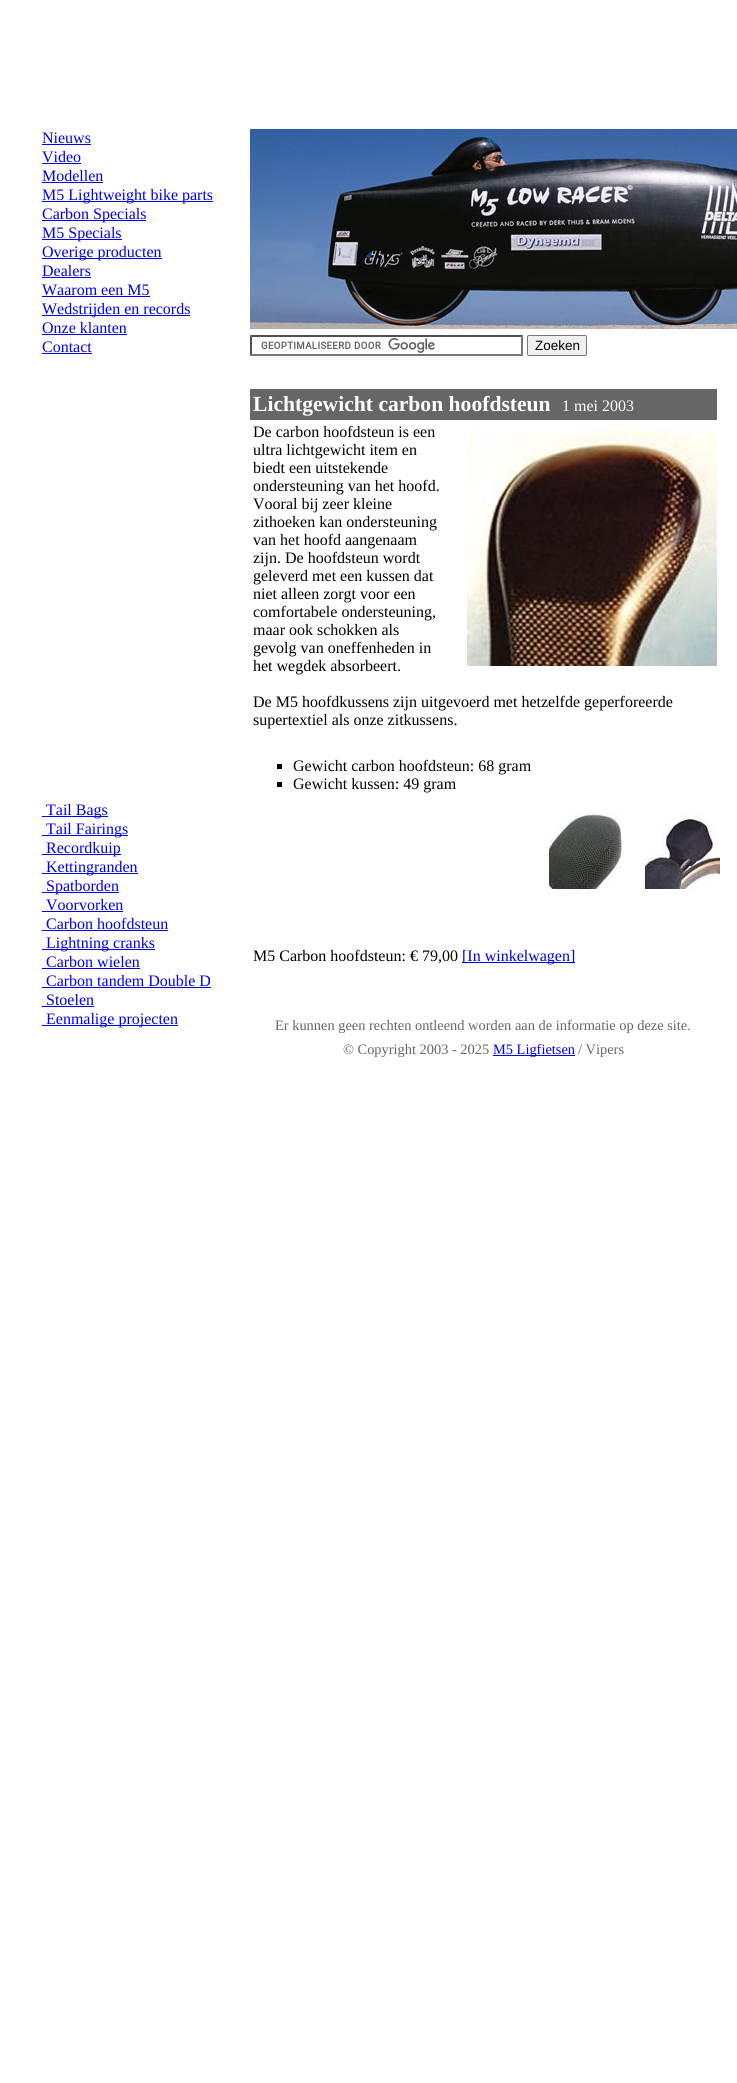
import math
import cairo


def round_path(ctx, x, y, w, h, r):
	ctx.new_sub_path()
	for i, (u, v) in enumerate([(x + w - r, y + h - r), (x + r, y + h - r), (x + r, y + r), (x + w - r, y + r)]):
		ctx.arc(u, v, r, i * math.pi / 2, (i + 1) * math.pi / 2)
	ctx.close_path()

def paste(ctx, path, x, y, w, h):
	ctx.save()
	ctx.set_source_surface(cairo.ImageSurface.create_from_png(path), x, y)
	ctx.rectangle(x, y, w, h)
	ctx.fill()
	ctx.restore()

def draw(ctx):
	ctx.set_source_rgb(1, 1, 1)
	ctx.paint()
	ctx.select_font_face('Liberation Serif')
	ctx.set_font_size(16)
	ctx.set_source_rgb(0, 0, 0.933)
	ctx.move_to(42, 143)
	ctx.show_text('Nieuws')
	ctx.rectangle(42, 144, 49, 1)
	ctx.fill()
	ctx.move_to(42, 162)
	ctx.show_text('Video')
	ctx.rectangle(42, 163, 39, 1)
	ctx.fill()
	ctx.move_to(42, 181)
	ctx.show_text('Modellen')
	ctx.rectangle(42, 182, 61, 1)
	ctx.fill()
	ctx.rectangle(42, 201, 171, 1)
	ctx.fill()
	ctx.move_to(42, 200)
	ctx.show_text('M5 Lightweight bike parts')
	ctx.rectangle(42, 220, 104, 1)
	ctx.fill()
	ctx.move_to(42, 219)
	ctx.show_text('Carbon Specials')
	ctx.rectangle(42, 239, 80, 1)
	ctx.fill()
	ctx.move_to(42, 238)
	ctx.show_text('M5 Specials')
	ctx.rectangle(42, 258, 120, 1)
	ctx.fill()
	ctx.move_to(42, 257)
	ctx.show_text('Overige producten')
	ctx.move_to(42, 276)
	ctx.show_text('Dealers')
	ctx.rectangle(42, 277, 49, 1)
	ctx.fill()
	ctx.move_to(42, 295)
	ctx.show_text('Waarom een M5')
	ctx.rectangle(42, 296, 108, 1)
	ctx.fill()
	ctx.rectangle(42, 315, 148, 1)
	ctx.fill()
	ctx.move_to(42, 314)
	ctx.show_text('Wedstrijden en records')
	ctx.move_to(42, 333)
	ctx.show_text('Onze klanten')
	ctx.rectangle(42, 334, 85, 1)
	ctx.fill()
	ctx.move_to(42, 352)
	ctx.show_text('Contact')
	ctx.rectangle(42, 353, 50, 1)
	ctx.fill()
	paste(ctx, 'media/1.png', 250, 129, 487, 200)
	paste(ctx, 'media/2.png', 261, 338, 174, 15)
	ctx.set_source_rgb(0.31, 0.31, 0.31)
	ctx.new_path()
	ctx.move_to(250, 335)
	ctx.line_to(523, 335)
	ctx.line_to(521, 337)
	ctx.line_to(252, 337)
	ctx.close_path()
	ctx.fill()
	ctx.set_source_rgb(0.463, 0.463, 0.463)
	ctx.new_path()
	ctx.move_to(523, 335)
	ctx.line_to(523, 356)
	ctx.line_to(521, 354)
	ctx.line_to(521, 337)
	ctx.close_path()
	ctx.fill()
	ctx.new_path()
	ctx.move_to(523, 356)
	ctx.line_to(250, 356)
	ctx.line_to(252, 354)
	ctx.line_to(521, 354)
	ctx.close_path()
	ctx.fill()
	ctx.set_source_rgb(0.31, 0.31, 0.31)
	ctx.new_path()
	ctx.move_to(250, 356)
	ctx.line_to(250, 335)
	ctx.line_to(252, 337)
	ctx.line_to(252, 354)
	ctx.close_path()
	ctx.fill()
	ctx.set_source_rgb(0.937, 0.937, 0.937)
	round_path(ctx, 527.5, 335.5, 59, 20, 1.5)
	ctx.fill_preserve()
	ctx.set_source_rgb(0.463, 0.463, 0.463)
	ctx.set_line_width(1)
	ctx.stroke()
	ctx.select_font_face('Liberation Sans')
	ctx.set_font_size(13.5)
	ctx.set_source_rgb(0, 0, 0)
	ctx.move_to(535, 350)
	ctx.show_text('Zoeken')
	ctx.set_source_rgb(0, 0, 0.933)
	ctx.rectangle(42, 816, 66, 1)
	ctx.fill()
	ctx.select_font_face('Liberation Serif')
	ctx.set_font_size(16)
	ctx.move_to(46, 815)
	ctx.show_text('Tail Bags')
	ctx.rectangle(42, 835, 86, 1)
	ctx.fill()
	ctx.move_to(46, 834)
	ctx.show_text('Tail Fairings')
	ctx.rectangle(42, 854, 79, 1)
	ctx.fill()
	ctx.move_to(46, 853)
	ctx.show_text('Recordkuip')
	ctx.rectangle(42, 873, 96, 1)
	ctx.fill()
	ctx.move_to(46, 872)
	ctx.show_text('Kettingranden')
	ctx.rectangle(42, 892, 77, 1)
	ctx.fill()
	ctx.move_to(46, 891)
	ctx.show_text('Spatborden')
	ctx.move_to(46, 910)
	ctx.show_text('Voorvorken')
	ctx.rectangle(42, 911, 81, 1)
	ctx.fill()
	ctx.move_to(46, 929)
	ctx.show_text('Carbon hoofdsteun')
	ctx.rectangle(42, 930, 126, 1)
	ctx.fill()
	ctx.rectangle(42, 949, 113, 1)
	ctx.fill()
	ctx.move_to(46, 948)
	ctx.show_text('Lightning cranks')
	ctx.move_to(46, 967)
	ctx.show_text('Carbon wielen')
	ctx.rectangle(42, 968, 98, 1)
	ctx.fill()
	ctx.move_to(46, 986)
	ctx.show_text('Carbon tandem Double D')
	ctx.rectangle(42, 987, 169, 1)
	ctx.fill()
	ctx.move_to(46, 1005)
	ctx.show_text('Stoelen')
	ctx.rectangle(42, 1006, 52, 1)
	ctx.fill()
	ctx.rectangle(42, 1025, 136, 1)
	ctx.fill()
	ctx.move_to(46, 1024)
	ctx.show_text('Eenmalige projecten')
	ctx.set_source_rgb(0.4, 0.4, 0.4)
	ctx.rectangle(250, 389, 467, 31)
	ctx.fill()
	ctx.select_font_face('Liberation Serif', cairo.FONT_SLANT_NORMAL, cairo.FONT_WEIGHT_BOLD)
	ctx.set_font_size(21.6)
	ctx.set_source_rgb(1, 1, 1)
	ctx.move_to(253, 411)
	ctx.show_text('Lichtgewicht carbon hoofdsteun')
	ctx.select_font_face('Liberation Serif')
	ctx.set_font_size(16)
	ctx.move_to(562, 411)
	ctx.show_text('1 mei 2003')
	ctx.set_source_rgb(0, 0, 0)
	ctx.move_to(253, 437)
	ctx.show_text('De carbon hoofdsteun is een')
	paste(ctx, 'media/3.png', 467, 431, 250, 235)
	for x, y, s in [
		(253, 455, 'ultra lichtgewicht item en'),
		(253, 473, 'biedt een uitstekende'),
		(253, 491, 'ondersteuning van het hoofd.'),
		(253, 509, 'Vooral bij zeer kleine'),
		(253, 527, 'zithoeken kan ondersteuning'),
		(253, 545, 'van het hoofd aangenaam'),
		(253, 563, 'zijn. De hoofdsteun wordt'),
		(253, 581, 'geleverd met een kussen dat'),
		(253, 599, 'niet alleen zorgt voor een'),
		(253, 617, 'comfortabele ondersteuning,'),
		(253, 635, 'maar ook schokken als'),
		(253, 653, 'gevolg van oneffenheden in'),
		(253, 671, 'het wegdek absorbeert.'),
		(253, 707, 'De M5 hoofdkussens zijn uitgevoerd met hetzelfde geperforeerde'),
		(253, 725, 'supertextiel als onze zitkussens.'),
	]:
		ctx.move_to(x, y)
		ctx.show_text(s)
	ctx.rectangle(277, 764, 5, 5)
	ctx.fill()
	ctx.move_to(293, 771)
	ctx.show_text('Gewicht carbon hoofdsteun: 68 gram')
	ctx.rectangle(277, 782, 5, 5)
	ctx.fill()
	ctx.move_to(293, 789)
	ctx.show_text('Gewicht kussen: 49 gram')
	paste(ctx, 'media/4.png', 549, 814, 75, 75)
	paste(ctx, 'media/5.png', 645, 814, 75, 75)
	ctx.move_to(253, 961)
	ctx.show_text('M5 Carbon hoofdsteun: € 79,00')
	ctx.set_source_rgb(0, 0, 0.933)
	ctx.rectangle(462, 962, 113, 1)
	ctx.fill()
	ctx.move_to(462, 961)
	ctx.show_text('[In winkelwagen]')
	ctx.set_font_size(14.4)
	ctx.set_source_rgb(0.4, 0.4, 0.4)
	ctx.move_to(275, 1030)
	ctx.show_text('Er kunnen geen rechten ontleend worden aan de informatie op deze site.')
	ctx.move_to(343, 1054)
	ctx.show_text('© Copyright 2003 - 2025')
	ctx.set_source_rgb(0, 0, 0.933)
	ctx.rectangle(493, 1055, 82, 1)
	ctx.fill()
	ctx.move_to(493, 1054)
	ctx.show_text('M5 Ligfietsen')
	ctx.set_source_rgb(0.4, 0.4, 0.4)
	ctx.move_to(578, 1054)
	ctx.show_text('/ Vipers')


surface = cairo.ImageSurface(cairo.FORMAT_RGB24, 737, 2083)
ctx = cairo.Context(surface)
options = cairo.FontOptions()
options.set_hint_metrics(cairo.HINT_METRICS_OFF)
options.set_hint_style(cairo.HINT_STYLE_NONE)
ctx.set_font_options(options)
ctx.set_miter_limit(4)
draw(ctx)
surface.write_to_png('image.png')
